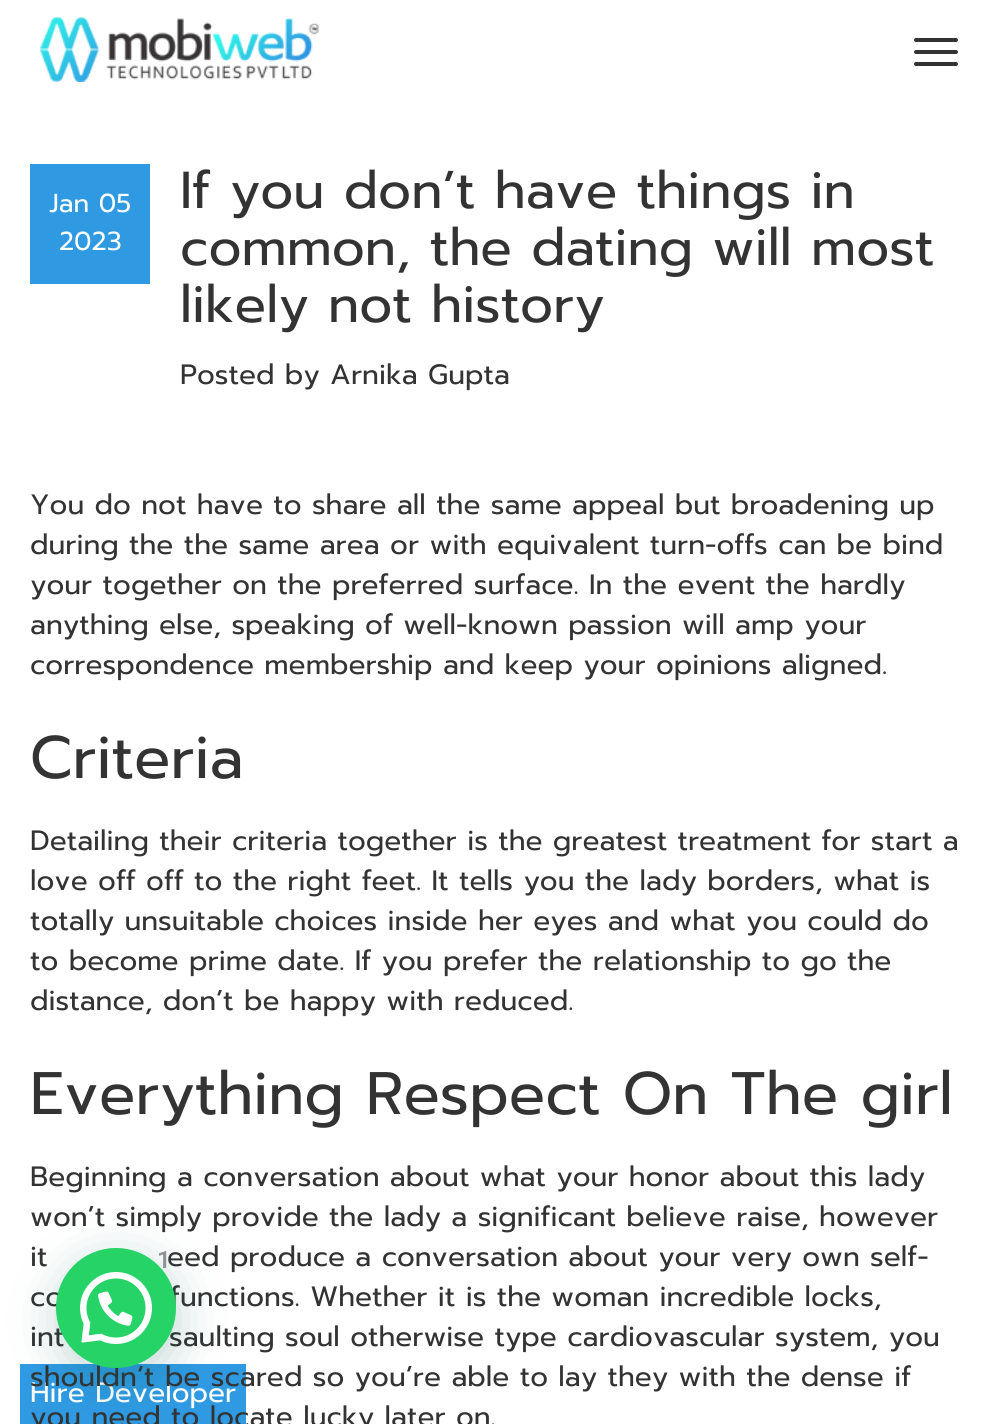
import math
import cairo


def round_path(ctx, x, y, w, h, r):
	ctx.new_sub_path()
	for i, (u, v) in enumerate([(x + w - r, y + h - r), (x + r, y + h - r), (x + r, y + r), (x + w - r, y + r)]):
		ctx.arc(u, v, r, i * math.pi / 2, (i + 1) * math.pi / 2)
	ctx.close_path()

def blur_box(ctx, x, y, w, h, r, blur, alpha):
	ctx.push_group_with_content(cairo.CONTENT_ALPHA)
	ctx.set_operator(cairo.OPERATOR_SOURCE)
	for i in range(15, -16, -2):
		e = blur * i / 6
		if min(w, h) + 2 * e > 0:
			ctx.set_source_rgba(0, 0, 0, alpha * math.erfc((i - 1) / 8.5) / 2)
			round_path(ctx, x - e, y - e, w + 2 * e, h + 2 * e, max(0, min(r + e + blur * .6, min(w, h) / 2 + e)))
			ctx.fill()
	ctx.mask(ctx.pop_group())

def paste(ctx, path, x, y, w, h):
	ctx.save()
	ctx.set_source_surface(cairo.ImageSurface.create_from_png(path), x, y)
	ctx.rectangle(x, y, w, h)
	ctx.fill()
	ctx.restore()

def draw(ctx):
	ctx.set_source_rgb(1, 1, 1)
	ctx.paint()
	ctx.set_source_rgb(0.184, 0.604, 0.886)
	ctx.rectangle(30, 164, 120, 120)
	ctx.fill()
	ctx.select_font_face('Prompt')
	ctx.set_font_size(26)
	ctx.set_source_rgb(1, 1, 1)
	ctx.move_to(49, 212)
	ctx.show_text('Jan 05')
	ctx.move_to(59, 250)
	ctx.show_text('2023')
	ctx.set_font_size(52)
	ctx.set_source_rgb(0.2, 0.2, 0.2)
	for x, y, s in [
		(180, 208, 'If you don’t have things in'),
		(180, 265, 'common, the dating will most'),
		(180, 322, 'likely not history'),
	]:
		ctx.move_to(x, y)
		ctx.show_text(s)
	ctx.set_font_size(28)
	for x, y, s in [
		(180, 384, 'Posted by Arnika Gupta'),
		(30, 514, 'You do not have to share all the same appeal but broadening up'),
		(30, 554, 'during the the same area or with equivalent turn-offs can be bind'),
		(30, 594, 'your together on the preferred surface. In the event the hardly'),
		(30, 634, 'anything else, speaking of well-known passion will amp your'),
		(30, 674, 'correspondence membership and keep your opinions aligned.'),
	]:
		ctx.move_to(x, y)
		ctx.show_text(s)
	ctx.set_font_size(60)
	ctx.move_to(30, 778)
	ctx.show_text('Criteria')
	ctx.set_font_size(28)
	for x, y, s in [
		(30, 850, 'Detailing their criteria together is the greatest treatment for start a'),
		(30, 890, 'love off off to the right feet. It tells you the lady borders, what is'),
		(30, 930, 'totally unsuitable choices inside her eyes and what you could do'),
		(30, 970, 'to become prime date. If you prefer the relationship to go the'),
		(30, 1010, 'distance, don’t be happy with reduced.'),
	]:
		ctx.move_to(x, y)
		ctx.show_text(s)
	ctx.set_font_size(60)
	ctx.move_to(30, 1114)
	ctx.show_text('Everything Respect On The girl')
	ctx.set_font_size(28)
	for x, y, s in [
		(30, 1186, 'Beginning a conversation about what your honor about this lady'),
		(30, 1226, 'won’t simply provide the lady a significant believe raise, however'),
		(30, 1266, 'it'),
		(167, 1266, 'eed produce a conversation about your very own self-'),
		(30, 1306, 'co'),
		(170, 1306, 'functions. Whether it is the woman incredible locks,'),
		(30, 1346, 'int'),
		(169, 1346, 'saulting soul otherwise type cardiovascular system, you'),
	]:
		ctx.move_to(x, y)
		ctx.show_text(s)
	ctx.set_source_rgb(0.184, 0.604, 0.886)
	ctx.rectangle(20, 1364, 226, 60)
	ctx.fill()
	ctx.set_source_rgb(1, 1, 1)
	ctx.move_to(30, 1402)
	ctx.show_text('Hire Developer')
	ctx.set_source_rgb(0.2, 0.2, 0.2)
	ctx.move_to(30, 1386)
	ctx.show_text('shouldn’t be scared so you’re able to lay they with the dense if')
	ctx.move_to(30, 1426)
	ctx.show_text('you need to locate lucky later on.')
	ctx.set_source_rgb(0.027, 0.369, 0.329)
	blur_box(ctx, 58, 1260, 120, 120, 60, 24, 0.24)
	ctx.set_source_rgb(0.145, 0.827, 0.4)
	ctx.arc(116, 1308, 60, 0, 2 * math.pi)
	ctx.fill()
	ctx.select_font_face('Roboto SemiBold')
	ctx.set_font_size(24)
	ctx.set_source_rgb(0.561, 0.576, 0.573)
	ctx.move_to(157, 1268)
	ctx.show_text('1')
	paste(ctx, 'media/1.png', 80, 1272, 72, 72)
	paste(ctx, 'media/2.png', 40, 17, 279, 65)
	ctx.set_source_rgb(0.2, 0.2, 0.2)
	round_path(ctx, 914, 38, 44, 4, 2)
	ctx.fill()
	round_path(ctx, 914, 50, 44, 4, 2)
	ctx.fill()
	round_path(ctx, 914, 62, 44, 4, 2)
	ctx.fill()


surface = cairo.ImageSurface(cairo.FORMAT_RGB24, 995, 1424)
ctx = cairo.Context(surface)
options = cairo.FontOptions()
options.set_hint_metrics(cairo.HINT_METRICS_OFF)
options.set_hint_style(cairo.HINT_STYLE_NONE)
ctx.set_font_options(options)
ctx.set_miter_limit(4)
draw(ctx)
surface.write_to_png('image.png')
